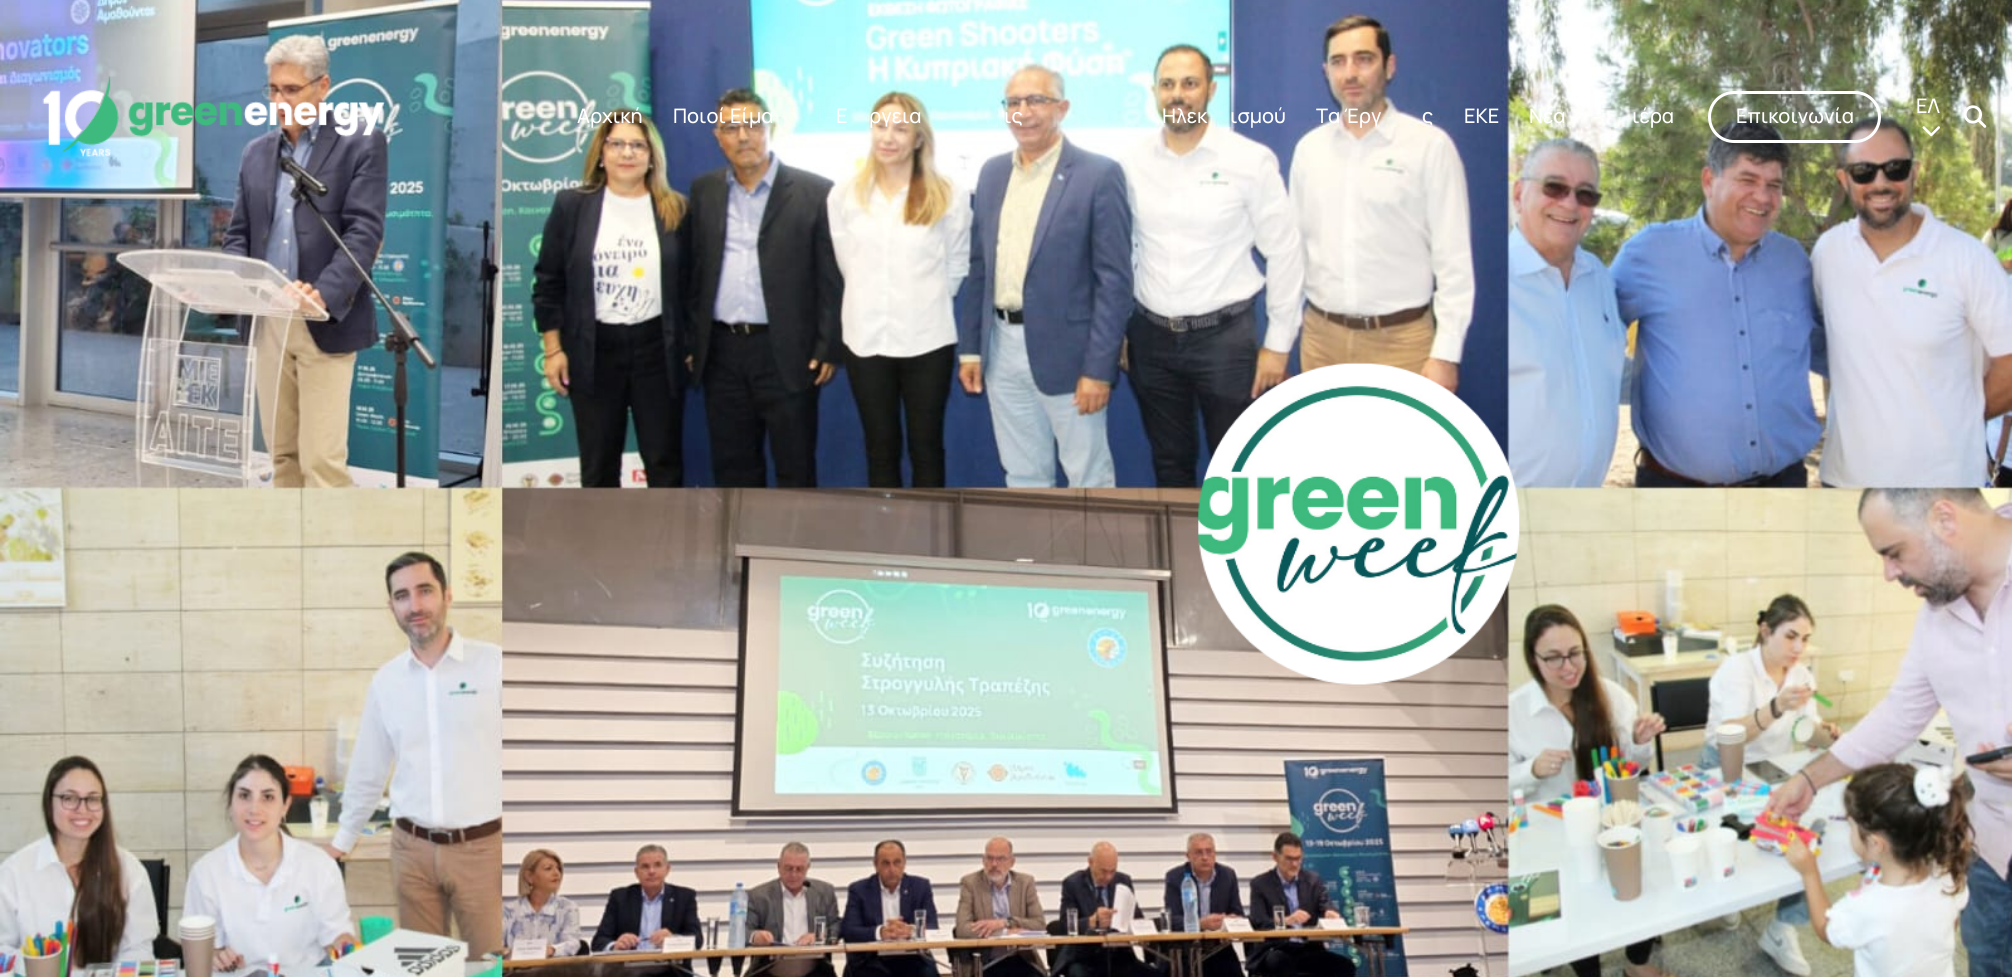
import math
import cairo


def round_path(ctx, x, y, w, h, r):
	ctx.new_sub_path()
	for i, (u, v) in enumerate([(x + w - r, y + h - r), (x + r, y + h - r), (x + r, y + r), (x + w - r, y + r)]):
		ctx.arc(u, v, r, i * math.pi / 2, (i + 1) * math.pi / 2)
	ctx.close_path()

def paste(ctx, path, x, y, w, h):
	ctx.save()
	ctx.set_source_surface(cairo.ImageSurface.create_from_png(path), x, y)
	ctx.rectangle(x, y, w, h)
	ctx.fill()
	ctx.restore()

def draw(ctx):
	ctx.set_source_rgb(1, 1, 1)
	ctx.paint()
	paste(ctx, 'media/1.png', 0, 0, 2012, 977)
	paste(ctx, 'media/2.png', 42, 76, 343, 81)
	ctx.select_font_face('Manrope Medium')
	ctx.set_font_size(20)
	ctx.set_source_rgb(1, 1, 1)
	ctx.move_to(1916, 113)
	ctx.show_text('ΕΛ')
	paste(ctx, 'media/3.png', 1922, 126, 18, 11)
	for x, y, s in [
		(577, 123, 'Αρχική'),
		(673, 123, 'Ποιοί Είμα'),
		(836, 123, 'Ε'),
		(869, 123, 'ργεια'),
		(1004, 123, 'ις'),
		(1162, 123, 'Ηλεκ'),
		(1230, 123, 'ισμού'),
		(1316, 123, 'Τα Έργ'),
		(1422, 123, 'ς'),
		(1464, 123, 'ΕΚΕ'),
		(1529, 123, 'Νέα'),
		(1632, 123, 'ιέρα'),
	]:
		ctx.move_to(x, y)
		ctx.show_text(s)
	round_path(ctx, 1709.5, 92.5, 170, 49, 24.5)
	ctx.set_line_width(3)
	ctx.stroke()
	ctx.move_to(1736, 123)
	ctx.show_text('Επικοινωνία')
	paste(ctx, 'media/4.png', 1964, 105, 23, 23)


surface = cairo.ImageSurface(cairo.FORMAT_RGB24, 2012, 977)
ctx = cairo.Context(surface)
options = cairo.FontOptions()
options.set_hint_metrics(cairo.HINT_METRICS_OFF)
options.set_hint_style(cairo.HINT_STYLE_NONE)
ctx.set_font_options(options)
ctx.set_miter_limit(4)
draw(ctx)
surface.write_to_png('image.png')
